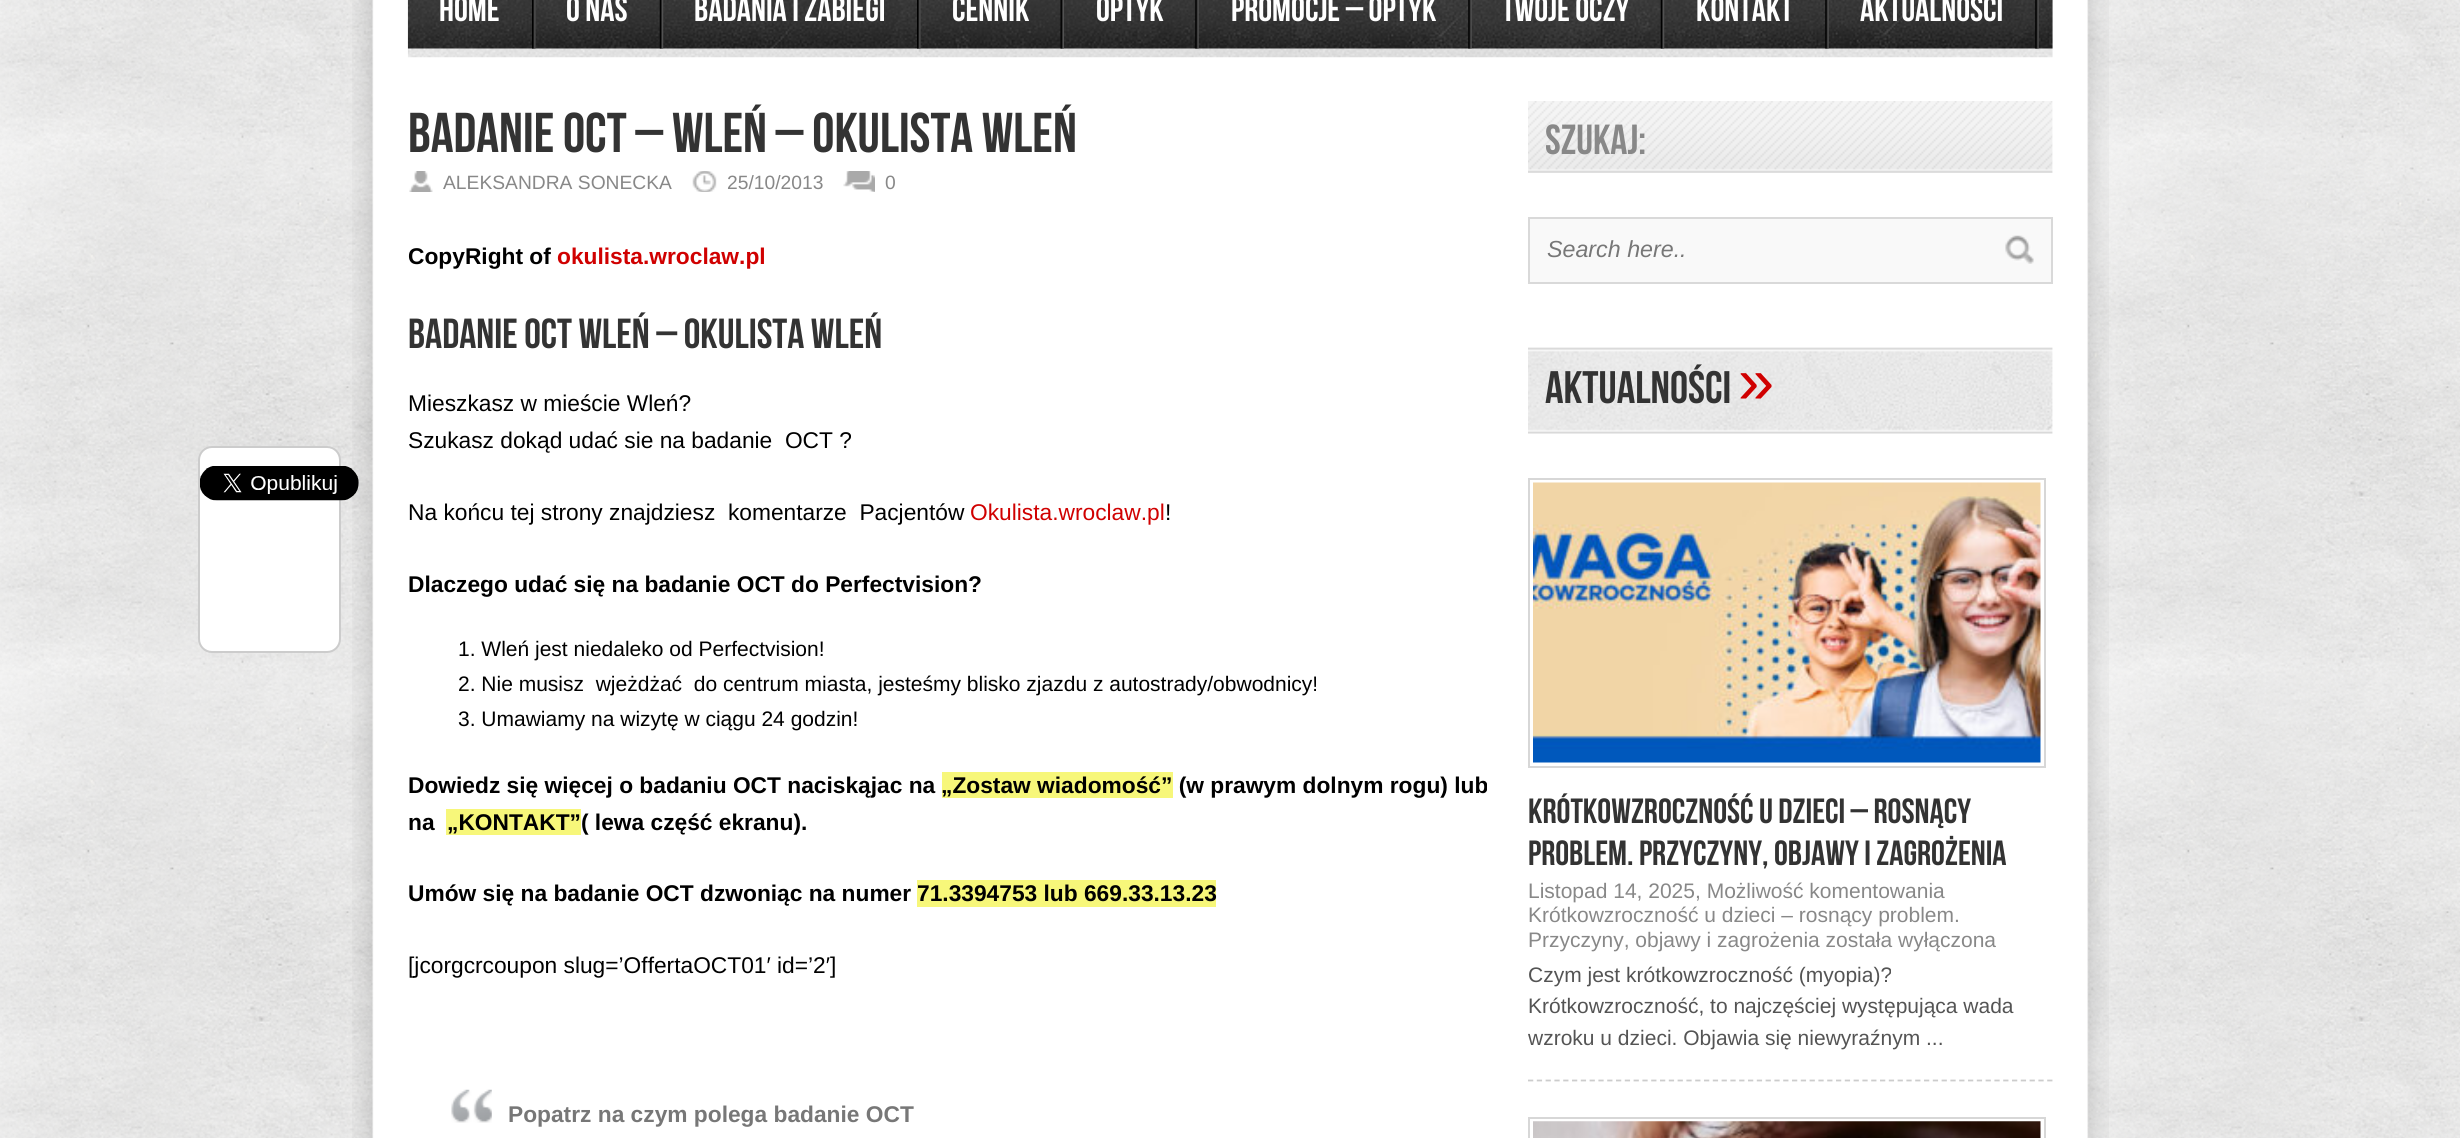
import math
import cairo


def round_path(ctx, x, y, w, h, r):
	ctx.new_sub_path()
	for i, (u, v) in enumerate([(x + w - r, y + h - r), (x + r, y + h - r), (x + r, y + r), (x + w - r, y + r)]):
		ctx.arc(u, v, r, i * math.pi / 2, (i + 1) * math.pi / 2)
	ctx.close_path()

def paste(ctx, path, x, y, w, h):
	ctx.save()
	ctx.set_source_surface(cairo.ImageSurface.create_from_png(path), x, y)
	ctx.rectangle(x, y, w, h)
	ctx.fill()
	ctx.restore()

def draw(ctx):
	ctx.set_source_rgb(0.965, 0.965, 0.965)
	ctx.paint()
	paste(ctx, 'media/1.png', 0, 0, 2460, 1138)
	paste(ctx, 'media/2.png', 352, 0, 1757, 1138)
	paste(ctx, 'media/3.png', 407, 0, 1646, 58)
	paste(ctx, 'media/4.png', 532, 0, 4, 49)
	ctx.select_font_face('Bebas Neue')
	ctx.set_font_size(35)
	ctx.set_source_rgb(1, 1, 1)
	ctx.move_to(439, 21)
	ctx.show_text('Home')
	paste(ctx, 'media/5.png', 659, 0, 5, 49)
	ctx.move_to(566, 21)
	ctx.show_text('O Nas')
	paste(ctx, 'media/6.png', 917, 0, 4, 49)
	ctx.move_to(694, 21)
	ctx.show_text('Badania i zabiegi')
	paste(ctx, 'media/7.png', 1060, 0, 4, 49)
	ctx.move_to(952, 21)
	ctx.show_text('CENNIK')
	paste(ctx, 'media/8.png', 1195, 0, 4, 49)
	ctx.move_to(1096, 21)
	ctx.show_text('OPTYK')
	paste(ctx, 'media/9.png', 1468, 0, 4, 49)
	ctx.move_to(1231, 21)
	ctx.show_text('Promocje – optyk')
	paste(ctx, 'media/10.png', 1660, 0, 5, 49)
	ctx.move_to(1502, 21)
	ctx.show_text('Twoje Oczy')
	paste(ctx, 'media/11.png', 1825, 0, 4, 49)
	ctx.move_to(1696, 21)
	ctx.show_text('KONTAKT')
	paste(ctx, 'media/12.png', 2035, 0, 4, 49)
	ctx.move_to(1860, 21)
	ctx.show_text('AKTUALNOŚCI')
	ctx.set_font_size(56)
	ctx.set_source_rgb(0.2, 0.2, 0.2)
	ctx.move_to(408, 152)
	ctx.show_text('Badanie OCT – Wleń – Okulista Wleń')
	paste(ctx, 'media/13.png', 409, 171, 24, 21)
	ctx.select_font_face('Liberation Sans')
	ctx.set_font_size(19.25)
	ctx.set_source_rgb(0.533, 0.533, 0.533)
	ctx.move_to(443, 189)
	ctx.show_text('ALEKSANDRA SONECKA')
	paste(ctx, 'media/14.png', 692, 171, 25, 21)
	ctx.move_to(727, 189)
	ctx.show_text('25/10/2013')
	paste(ctx, 'media/15.png', 843, 171, 32, 21)
	ctx.move_to(885, 189)
	ctx.show_text('0')
	ctx.set_source_rgb(1, 1, 1)
	round_path(ctx, 199, 447, 141, 205, 13)
	ctx.fill_preserve()
	ctx.set_source_rgb(0.8, 0.8, 0.8)
	ctx.stroke()
	paste(ctx, 'media/16.png', 200, 466, 159, 35)
	ctx.select_font_face('Liberation Sans', cairo.FONT_SLANT_NORMAL, cairo.FONT_WEIGHT_BOLD)
	ctx.set_font_size(22.75)
	ctx.set_source_rgb(0, 0, 0)
	ctx.move_to(408, 264)
	ctx.show_text('CopyRight of')
	ctx.set_source_rgb(0.816, 0, 0)
	ctx.move_to(557, 264)
	ctx.show_text('okulista.wroclaw.pl')
	ctx.select_font_face('Bebas Neue')
	ctx.set_font_size(42)
	ctx.set_source_rgb(0.2, 0.2, 0.2)
	ctx.move_to(408, 348)
	ctx.show_text('Badanie OCT Wleń – Okulista Wleń')
	ctx.select_font_face('Liberation Sans')
	ctx.set_font_size(22.75)
	ctx.set_source_rgb(0, 0, 0)
	for x, y, s in [
		(408, 411, 'Mieszkasz w mieście Wleń?'),
		(408, 448, 'Szukasz dokąd udać sie na badanie  OCT ?'),
		(408, 520, 'Na końcu tej strony znajdziesz  komentarze  Pacjentów'),
	]:
		ctx.move_to(x, y)
		ctx.show_text(s)
	ctx.set_source_rgb(0.816, 0, 0)
	ctx.move_to(970, 520)
	ctx.show_text('Okulista.wroclaw.pl')
	ctx.set_source_rgb(0, 0, 0)
	ctx.move_to(1165, 520)
	ctx.show_text('!')
	ctx.select_font_face('Liberation Sans', cairo.FONT_SLANT_NORMAL, cairo.FONT_WEIGHT_BOLD)
	ctx.move_to(408, 592)
	ctx.show_text('Dlaczego udać się na badanie OCT do Perfectvision?')
	ctx.select_font_face('Liberation Sans')
	ctx.set_font_size(21)
	for x, y, s in [
		(458, 656, '1. Wleń jest niedaleko od Perfectvision!'),
		(458, 691, '2. Nie musisz  wjeżdżać  do centrum miasta, jesteśmy blisko zjazdu z autostrady/obwodnicy!'),
		(458, 726, '3. Umawiamy na wizytę w ciągu 24 godzin!'),
	]:
		ctx.move_to(x, y)
		ctx.show_text(s)
	ctx.select_font_face('Liberation Sans', cairo.FONT_SLANT_NORMAL, cairo.FONT_WEIGHT_BOLD)
	ctx.set_font_size(22.75)
	ctx.move_to(408, 793)
	ctx.show_text('Dowiedz się więcej o badaniu OCT naciskąjac na')
	ctx.set_source_rgb(0.965, 0.965, 0.478)
	ctx.rectangle(942, 772, 231, 26)
	ctx.fill()
	ctx.set_source_rgb(0, 0, 0)
	ctx.move_to(941, 793)
	ctx.show_text('„Zostaw wiadomość” (w prawym dolnym rogu) lub')
	ctx.move_to(408, 830)
	ctx.show_text('na')
	ctx.set_source_rgb(0.965, 0.965, 0.478)
	ctx.rectangle(446, 809, 135, 26)
	ctx.fill()
	ctx.set_source_rgb(0, 0, 0)
	ctx.move_to(447, 830)
	ctx.show_text('„KONTAKT”( lewa część ekranu).')
	ctx.move_to(408, 901)
	ctx.show_text('Umów się na badanie OCT dzwoniąc na numer')
	ctx.set_source_rgb(0.965, 0.965, 0.478)
	ctx.rectangle(917, 880, 299, 27)
	ctx.fill()
	ctx.set_source_rgb(0, 0, 0)
	ctx.move_to(917, 901)
	ctx.show_text('71.3394753 lub 669.33.13.23')
	ctx.select_font_face('Liberation Sans')
	ctx.move_to(408, 973)
	ctx.show_text('[jcorgcrcoupon slug=’OffertaOCT01′ id=’2′]')
	paste(ctx, 'media/17.png', 451, 1089, 41, 34)
	ctx.select_font_face('Liberation Sans', cairo.FONT_SLANT_NORMAL, cairo.FONT_WEIGHT_BOLD)
	ctx.set_source_rgb(0.467, 0.467, 0.467)
	ctx.move_to(508, 1122)
	ctx.show_text('Popatrz na czym polega badanie OCT')
	paste(ctx, 'media/18.png', 1528, 101, 525, 72)
	ctx.select_font_face('Bebas Neue')
	ctx.set_font_size(42)
	ctx.set_source_rgb(0.533, 0.533, 0.533)
	ctx.move_to(1545, 154)
	ctx.show_text('Szukaj:')
	ctx.set_source_rgb(0.973, 0.973, 0.973)
	ctx.rectangle(1529, 218, 523, 65)
	ctx.fill_preserve()
	ctx.set_source_rgb(0.851, 0.851, 0.851)
	ctx.stroke()
	ctx.select_font_face('Liberation Sans', cairo.FONT_SLANT_ITALIC)
	ctx.set_font_size(23.25)
	ctx.set_source_rgb(0.467, 0.467, 0.467)
	ctx.move_to(1547, 257)
	ctx.show_text('Search here..')
	paste(ctx, 'media/19.png', 2005, 235, 29, 29)
	paste(ctx, 'media/20.png', 1528, 347, 525, 87)
	ctx.select_font_face('Bebas Neue')
	ctx.set_font_size(45.5)
	ctx.set_source_rgb(0.2, 0.2, 0.2)
	ctx.move_to(1545, 403)
	ctx.show_text('Aktualności')
	ctx.select_font_face('Liberation Sans')
	ctx.set_font_size(65)
	ctx.set_source_rgb(0.816, 0, 0)
	ctx.move_to(1738, 403)
	ctx.show_text('»')
	ctx.new_path()
	ctx.move_to(1528, 1080.5)
	ctx.line_to(2053, 1080.5)
	ctx.set_source_rgb(0.8, 0.8, 0.8)
	ctx.set_line_width(1.8)
	ctx.set_dash([5.25, 3.55])
	ctx.stroke()
	ctx.rectangle(1529, 479, 516, 288)
	ctx.set_source_rgb(0.843, 0.843, 0.843)
	ctx.set_line_width(2)
	ctx.set_dash([])
	ctx.stroke()
	paste(ctx, 'media/21.png', 1533, 482, 508, 281)
	ctx.select_font_face('Bebas Neue')
	ctx.set_font_size(35)
	ctx.set_source_rgb(0.2, 0.2, 0.2)
	ctx.move_to(1528, 823)
	ctx.show_text('Krótkowzroczność u dzieci – rosnący')
	ctx.move_to(1528, 865)
	ctx.show_text('problem. Przyczyny, objawy i zagrożenia')
	ctx.select_font_face('Liberation Sans')
	ctx.set_font_size(21)
	ctx.set_source_rgb(0.533, 0.533, 0.533)
	for x, y, s in [
		(1528, 898, 'Listopad 14, 2025, Możliwość komentowania'),
		(1528, 922, 'Krótkowzroczność u dzieci – rosnący problem.'),
		(1528, 947, 'Przyczyny, objawy i zagrożenia została wyłączona'),
	]:
		ctx.move_to(x, y)
		ctx.show_text(s)
	ctx.set_source_rgb(0.329, 0.329, 0.329)
	for x, y, s in [
		(1528, 982, 'Czym jest krótkowzroczność (myopia)?'),
		(1528, 1013, 'Krótkowzroczność, to najczęściej występująca wada'),
		(1528, 1045, 'wzroku u dzieci. Objawia się niewyraźnym ...'),
	]:
		ctx.move_to(x, y)
		ctx.show_text(s)
	ctx.rectangle(1529, 1118, 516, 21)
	ctx.set_source_rgb(0.843, 0.843, 0.843)
	ctx.stroke()
	paste(ctx, 'media/22.png', 1533, 1121, 508, 17)


surface = cairo.ImageSurface(cairo.FORMAT_RGB24, 2460, 1138)
ctx = cairo.Context(surface)
options = cairo.FontOptions()
options.set_hint_metrics(cairo.HINT_METRICS_OFF)
options.set_hint_style(cairo.HINT_STYLE_NONE)
ctx.set_font_options(options)
ctx.set_miter_limit(4)
draw(ctx)
surface.write_to_png('image.png')
